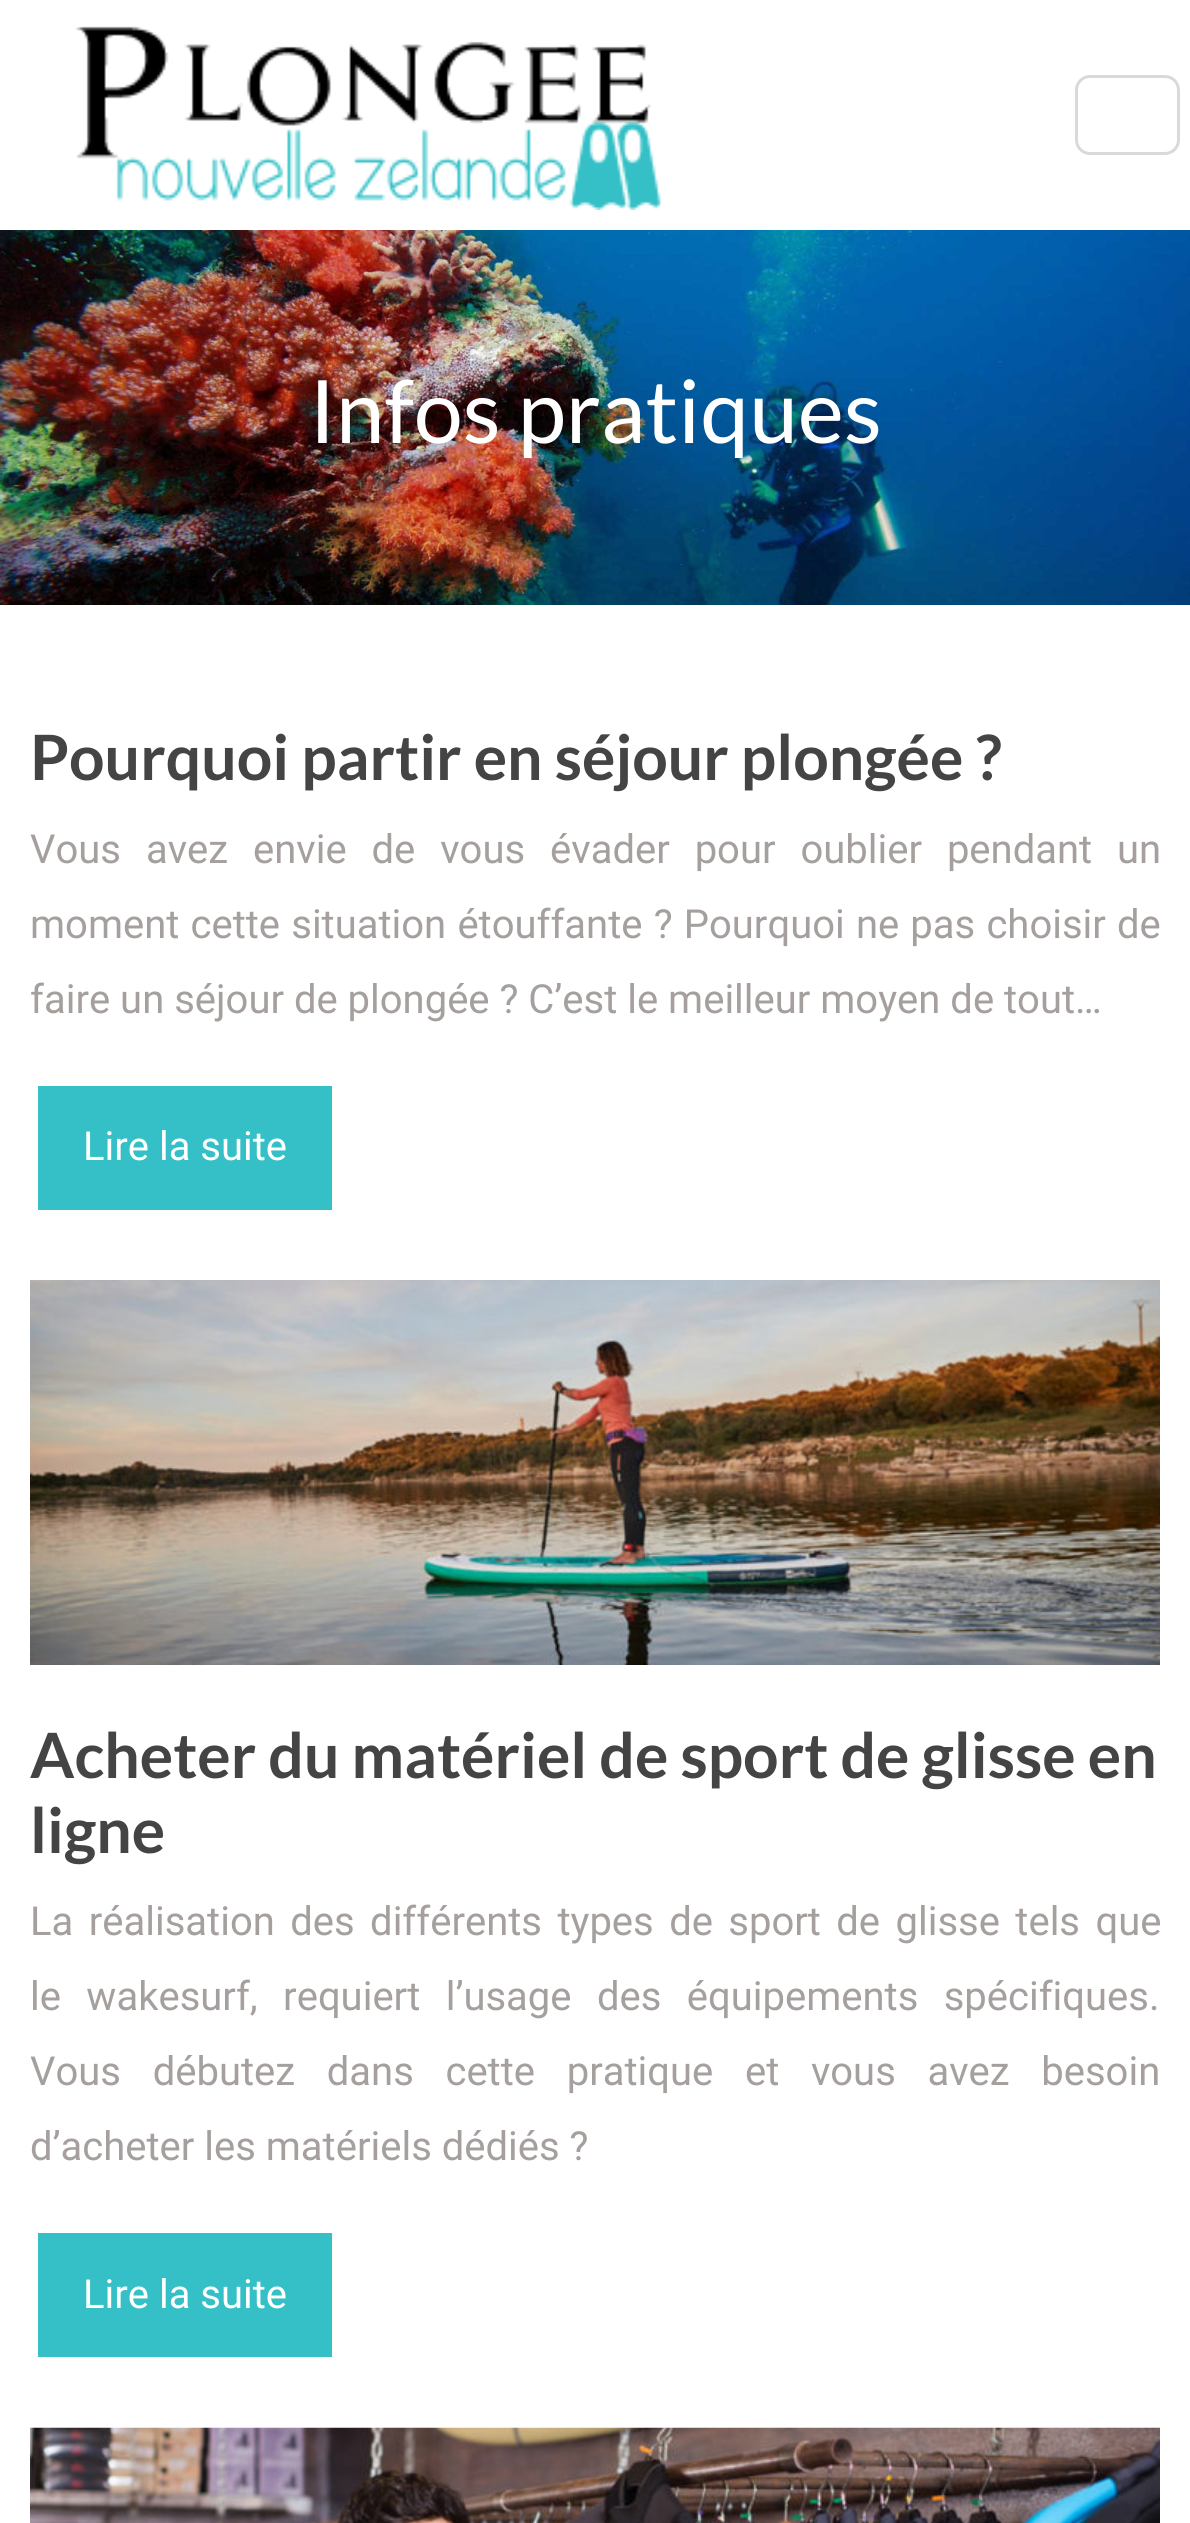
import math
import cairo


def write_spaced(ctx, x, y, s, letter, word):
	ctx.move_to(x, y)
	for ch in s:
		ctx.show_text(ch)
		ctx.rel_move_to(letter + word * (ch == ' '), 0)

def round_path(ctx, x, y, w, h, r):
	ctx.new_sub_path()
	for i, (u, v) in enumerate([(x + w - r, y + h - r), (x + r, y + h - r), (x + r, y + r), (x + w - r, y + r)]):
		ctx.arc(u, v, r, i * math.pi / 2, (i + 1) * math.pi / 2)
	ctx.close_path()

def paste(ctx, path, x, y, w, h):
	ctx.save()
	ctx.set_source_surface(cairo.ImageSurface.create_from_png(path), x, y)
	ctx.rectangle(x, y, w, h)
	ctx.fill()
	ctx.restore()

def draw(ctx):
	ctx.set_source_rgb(1, 1, 1)
	ctx.paint()
	paste(ctx, 'media/1.png', 75, 26, 586, 184)
	round_path(ctx, 1076.5, 76.5, 102, 77, 13.5)
	ctx.set_source_rgb(0.851, 0.851, 0.851)
	ctx.set_line_width(3)
	ctx.stroke()
	paste(ctx, 'media/2.png', 0, 230, 1190, 375)
	ctx.select_font_face('Lato')
	ctx.set_font_size(87.5)
	ctx.set_source_rgb(1, 1, 1)
	ctx.move_to(309, 443)
	ctx.show_text('Infos pratiques')
	ctx.select_font_face('Lato', cairo.FONT_SLANT_NORMAL, cairo.FONT_WEIGHT_BOLD)
	ctx.set_font_size(62.5)
	ctx.set_source_rgb(0.267, 0.267, 0.267)
	ctx.move_to(30, 780)
	ctx.show_text('Pourquoi partir en séjour plongée ?')
	ctx.select_font_face('Roboto')
	ctx.set_font_size(40)
	ctx.set_source_rgb(0.647, 0.627, 0.62)
	write_spaced(ctx, 30, 863, 'Vous avez envie de vous évader pour oublier pendant un', 0, 15)
	write_spaced(ctx, 30, 938, 'moment cette situation étouffante ? Pourquoi ne pas choisir de', 0, 1.25)
	ctx.move_to(30, 1013)
	ctx.show_text('faire un séjour de plongée ? C’est le meilleur moyen de tout…')
	ctx.set_source_rgb(0.204, 0.753, 0.776)
	ctx.rectangle(38, 1086, 294, 124)
	ctx.fill()
	ctx.set_source_rgb(1, 1, 1)
	ctx.move_to(83, 1160)
	ctx.show_text('Lire la suite')
	paste(ctx, 'media/3.png', 30, 1280, 1130, 385)
	ctx.select_font_face('Lato', cairo.FONT_SLANT_NORMAL, cairo.FONT_WEIGHT_BOLD)
	ctx.set_font_size(62.5)
	ctx.set_source_rgb(0.267, 0.267, 0.267)
	ctx.move_to(30, 1778)
	ctx.show_text('Acheter du matériel de sport de glisse en')
	ctx.move_to(30, 1853)
	ctx.show_text('ligne')
	ctx.select_font_face('Roboto')
	ctx.set_font_size(40)
	ctx.set_source_rgb(0.647, 0.627, 0.62)
	write_spaced(ctx, 30, 1935, 'La réalisation des différents types de sport de glisse tels que', 0, 5.5)
	write_spaced(ctx, 30, 2010, 'le wakesurf, requiert l’usage des équipements spécifiques.', 0, 15.5)
	write_spaced(ctx, 30, 2085, 'Vous débutez dans cette pratique et vous avez besoin', 0, 21.75)
	ctx.move_to(30, 2160)
	ctx.show_text('d’acheter les matériels dédiés ?')
	ctx.set_source_rgb(0.204, 0.753, 0.776)
	ctx.rectangle(38, 2233, 294, 124)
	ctx.fill()
	ctx.set_source_rgb(1, 1, 1)
	ctx.move_to(83, 2308)
	ctx.show_text('Lire la suite')
	paste(ctx, 'media/4.png', 30, 2427, 1130, 96)


surface = cairo.ImageSurface(cairo.FORMAT_RGB24, 1190, 2523)
ctx = cairo.Context(surface)
options = cairo.FontOptions()
options.set_hint_metrics(cairo.HINT_METRICS_OFF)
options.set_hint_style(cairo.HINT_STYLE_NONE)
ctx.set_font_options(options)
ctx.set_miter_limit(4)
draw(ctx)
surface.write_to_png('image.png')
